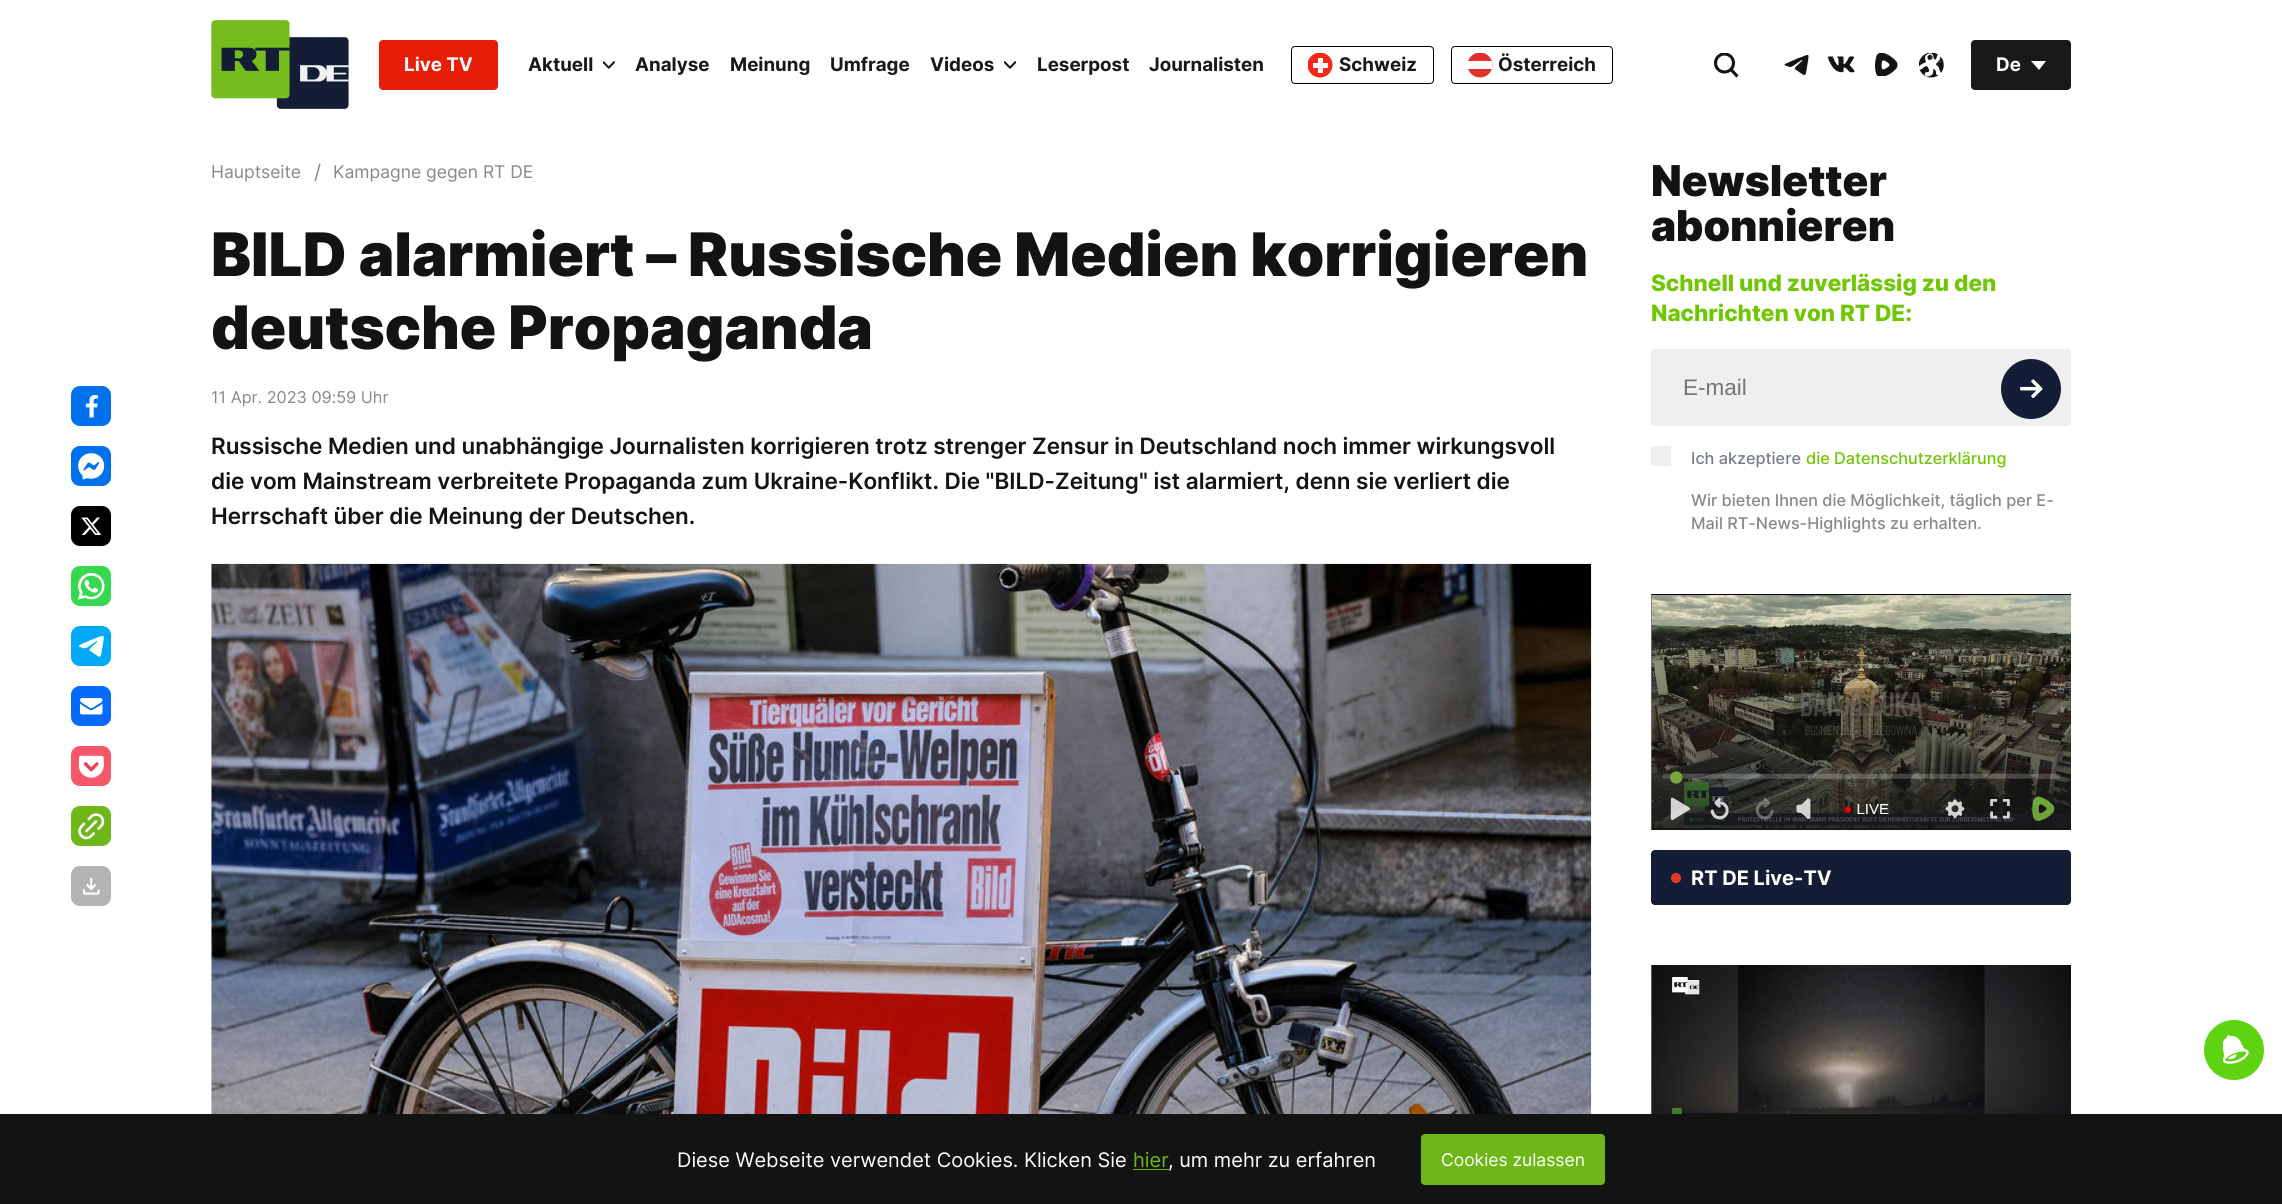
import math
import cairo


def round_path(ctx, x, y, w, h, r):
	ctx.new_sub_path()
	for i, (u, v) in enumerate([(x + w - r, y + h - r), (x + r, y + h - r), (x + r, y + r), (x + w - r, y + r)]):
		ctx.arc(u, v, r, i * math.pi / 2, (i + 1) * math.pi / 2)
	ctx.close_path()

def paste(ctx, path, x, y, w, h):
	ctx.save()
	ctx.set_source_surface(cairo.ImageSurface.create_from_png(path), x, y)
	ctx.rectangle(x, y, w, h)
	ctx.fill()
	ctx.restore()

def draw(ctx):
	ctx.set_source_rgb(1, 1, 1)
	ctx.paint()
	paste(ctx, 'media/1.png', 211, 20, 138, 89)
	ctx.set_source_rgb(0.902, 0.118, 0.039)
	round_path(ctx, 379, 40, 119, 50, 4)
	ctx.fill()
	ctx.select_font_face('Inter', cairo.FONT_SLANT_NORMAL, cairo.FONT_WEIGHT_BOLD)
	ctx.set_font_size(18.75)
	ctx.set_source_rgb(1, 1, 1)
	ctx.move_to(404, 71)
	ctx.show_text('Live TV')
	ctx.set_source_rgb(0.094, 0.098, 0.102)
	ctx.move_to(528, 71)
	ctx.show_text('Aktuell')
	paste(ctx, 'media/2.png', 603, 61, 12, 8)
	for x, y, s in [
		(635, 71, 'Analyse'),
		(730, 71, 'Meinung'),
		(830, 71, 'Umfrage'),
		(930, 71, 'Videos'),
	]:
		ctx.move_to(x, y)
		ctx.show_text(s)
	paste(ctx, 'media/3.png', 1004, 61, 12, 8)
	ctx.move_to(1037, 71)
	ctx.show_text('Leserpost')
	ctx.move_to(1149, 71)
	ctx.show_text('Journalisten')
	round_path(ctx, 1291.5, 46.5, 142, 37, 3.5)
	ctx.set_source_rgb(0, 0, 0)
	ctx.set_line_width(1)
	ctx.stroke()
	ctx.save()
	ctx.rectangle(1308, 53, 25, 25)
	ctx.clip()
	ctx.set_source_rgb(0.969, 0.149, 0.09)
	ctx.arc(1320, 65, 12.5, 0, 2 * math.pi)
	ctx.fill()
	ctx.restore()
	ctx.set_source_rgb(1, 1, 1)
	ctx.rectangle(1318, 58, 5, 15)
	ctx.fill()
	ctx.rectangle(1313, 63, 15, 5)
	ctx.fill()
	ctx.set_source_rgb(0.094, 0.098, 0.102)
	ctx.move_to(1339, 71)
	ctx.show_text('Schweiz')
	round_path(ctx, 1451.5, 46.5, 161, 37, 3.5)
	ctx.set_source_rgb(0, 0, 0)
	ctx.stroke()
	ctx.save()
	ctx.rectangle(1468, 53, 25, 25)
	ctx.clip()
	ctx.set_source_rgb(0.894, 0.192, 0.169)
	ctx.arc(1480, 65, 12.5, 0, 2 * math.pi)
	ctx.fill()
	ctx.restore()
	ctx.set_source_rgb(1, 1, 1)
	ctx.new_path()
	ctx.move_to(1468, 61.5)
	ctx.line_to(1468, 61)
	ctx.line_to(1492, 61)
	ctx.curve_to(1492.5, 63.5, 1492.5, 66.5, 1492, 69)
	ctx.line_to(1468, 69)
	ctx.close_path()
	ctx.fill()
	ctx.set_source_rgb(0.094, 0.098, 0.102)
	ctx.move_to(1498, 71)
	ctx.show_text('Österreich')
	ctx.save()
	ctx.rectangle(1714, 53, 25, 25)
	ctx.clip()
	ctx.arc(1724.5, 63, 9, 0, 2 * math.pi)
	ctx.set_source_rgb(0.078, 0.078, 0.078)
	ctx.set_line_width(3.1)
	ctx.stroke()
	ctx.restore()
	ctx.new_path()
	ctx.move_to(1731, 69.5)
	ctx.line_to(1737.5, 76.5)
	ctx.set_source_rgb(0.078, 0.078, 0.078)
	ctx.set_line_width(3.1)
	ctx.stroke()
	paste(ctx, 'media/4.png', 1784, 55, 25, 20)
	paste(ctx, 'media/5.png', 1828, 56, 27, 17)
	paste(ctx, 'media/6.png', 1875, 53, 23, 23)
	paste(ctx, 'media/7.png', 1919, 53, 25, 25)
	ctx.set_source_rgb(0.094, 0.098, 0.102)
	round_path(ctx, 1971, 40, 100, 50, 4)
	ctx.fill()
	ctx.set_source_rgb(1, 1, 1)
	ctx.move_to(1996, 71)
	ctx.show_text('De')
	ctx.new_path()
	ctx.move_to(2031, 61)
	ctx.line_to(2046, 61)
	ctx.line_to(2039, 70)
	ctx.close_path()
	ctx.fill()
	ctx.select_font_face('Inter')
	ctx.set_font_size(17.5)
	ctx.set_source_rgb(0.533, 0.533, 0.533)
	ctx.move_to(211, 178)
	ctx.show_text('Hauptseite')
	ctx.set_font_size(20)
	ctx.move_to(314, 179)
	ctx.show_text('/')
	ctx.set_font_size(17.5)
	ctx.move_to(333, 178)
	ctx.show_text('Kampagne gegen RT DE')
	ctx.select_font_face('Inter Black')
	ctx.set_font_size(60)
	ctx.set_source_rgb(0.078, 0.078, 0.078)
	ctx.move_to(211, 276)
	ctx.show_text('BILD alarmiert – Russische Medien korrigieren')
	ctx.move_to(211, 349)
	ctx.show_text('deutsche Propaganda')
	ctx.set_source_rgb(0, 0.443, 0.929)
	round_path(ctx, 71, 386, 40, 40, 9)
	ctx.fill()
	paste(ctx, 'media/8.png', 85, 395, 13, 23)
	round_path(ctx, 71, 446, 40, 40, 9)
	ctx.fill()
	paste(ctx, 'media/9.png', 78, 453, 27, 27)
	ctx.set_source_rgb(0, 0, 0)
	round_path(ctx, 71, 506, 40, 40, 9)
	ctx.fill()
	paste(ctx, 'media/10.png', 81, 517, 21, 18)
	ctx.set_source_rgb(0.208, 0.851, 0.31)
	round_path(ctx, 71, 566, 40, 40, 9)
	ctx.fill()
	paste(ctx, 'media/11.png', 78, 573, 27, 27)
	ctx.set_source_rgb(0, 0.667, 0.961)
	round_path(ctx, 71, 626, 40, 40, 9)
	ctx.fill()
	paste(ctx, 'media/12.png', 79, 635, 25, 22)
	ctx.set_source_rgb(0.031, 0.416, 1)
	round_path(ctx, 71, 686, 40, 40, 9)
	ctx.fill()
	paste(ctx, 'media/13.png', 80, 698, 23, 17)
	ctx.set_source_rgb(0.961, 0.341, 0.412)
	round_path(ctx, 71, 746, 40, 40, 9)
	ctx.fill()
	paste(ctx, 'media/14.png', 79, 755, 25, 23)
	ctx.set_source_rgb(0.435, 0.718, 0.098)
	round_path(ctx, 71, 806, 40, 40, 9)
	ctx.fill()
	paste(ctx, 'media/15.png', 78, 813, 27, 27)
	ctx.set_source_rgb(0.702, 0.702, 0.702)
	round_path(ctx, 71, 866, 40, 40, 9)
	ctx.fill()
	paste(ctx, 'media/16.png', 82, 877, 18, 18)
	ctx.select_font_face('Inter')
	ctx.set_font_size(16.25)
	ctx.set_source_rgb(0.533, 0.533, 0.533)
	ctx.move_to(211, 403)
	ctx.show_text('11 Apr. 2023 09:59 Uhr')
	ctx.select_font_face('Inter SemiBold')
	ctx.set_font_size(22.5)
	ctx.set_source_rgb(0.078, 0.078, 0.078)
	for x, y, s in [
		(211, 454, 'Russische Medien und unabhängige Journalisten korrigieren trotz strenger Zensur in Deutschland noch immer wirkungsvoll'),
		(211, 489, 'die vom Mainstream verbreitete Propaganda zum Ukraine-Konflikt. Die "BILD-Zeitung" ist alarmiert, denn sie verliert die'),
		(211, 524, 'Herrschaft über die Meinung der Deutschen.'),
	]:
		ctx.move_to(x, y)
		ctx.show_text(s)
	paste(ctx, 'media/17.png', 211, 563, 1381, 551)
	ctx.select_font_face('Inter Black')
	ctx.set_font_size(42.5)
	ctx.move_to(1651, 196)
	ctx.show_text('Newsletter')
	ctx.move_to(1651, 241)
	ctx.show_text('abonnieren')
	ctx.select_font_face('Inter ExtraBold')
	ctx.set_font_size(22.5)
	ctx.set_source_rgb(0.431, 0.78, 0.008)
	ctx.move_to(1651, 291)
	ctx.show_text('Schnell und zuverlässig zu den')
	ctx.move_to(1651, 321)
	ctx.show_text('Nachrichten von RT DE:')
	ctx.set_source_rgb(0.937, 0.937, 0.937)
	round_path(ctx, 1651, 349, 420, 77, 4)
	ctx.fill()
	ctx.select_font_face('Liberation Sans')
	ctx.set_source_rgb(0.459, 0.459, 0.459)
	ctx.move_to(1683, 395)
	ctx.show_text('E-mail')
	ctx.set_source_rgb(0.075, 0.114, 0.212)
	ctx.new_path()
	ctx.arc(2031, 389, 30, 0, 2 * math.pi)
	ctx.fill()
	paste(ctx, 'media/18.png', 2020, 379, 23, 19)
	ctx.set_source_rgb(0.937, 0.937, 0.937)
	ctx.rectangle(1651, 446, 20, 20)
	ctx.fill()
	ctx.select_font_face('Inter Medium')
	ctx.set_font_size(16.25)
	ctx.set_source_rgb(0.467, 0.486, 0.525)
	ctx.move_to(1691, 464)
	ctx.show_text('Ich akzeptiere')
	ctx.set_source_rgb(0.431, 0.78, 0.008)
	ctx.move_to(1806, 464)
	ctx.show_text('die Datenschutzerklärung')
	ctx.set_source_rgb(0.533, 0.533, 0.533)
	ctx.move_to(1691, 506)
	ctx.show_text('Wir bieten Ihnen die Möglichkeit, täglich per E-')
	ctx.move_to(1691, 529)
	ctx.show_text('Mail RT-News-Highlights zu erhalten.')
	paste(ctx, 'media/19.png', 1651, 594, 420, 236)
	ctx.set_source_rgb(0.075, 0.114, 0.212)
	round_path(ctx, 1651, 850, 420, 55, 4)
	ctx.fill()
	ctx.set_source_rgb(0.882, 0.227, 0.157)
	ctx.arc(1676, 878, 5, 0, 2 * math.pi)
	ctx.fill()
	ctx.select_font_face('Inter', cairo.FONT_SLANT_NORMAL, cairo.FONT_WEIGHT_BOLD)
	ctx.set_font_size(20)
	ctx.set_source_rgb(1, 1, 1)
	ctx.move_to(1691, 885)
	ctx.show_text('RT DE Live-TV')
	paste(ctx, 'media/20.png', 1651, 965, 420, 149)
	ctx.set_source_rgb(0.365, 0.827, 0.071)
	ctx.arc(2234, 1050, 30, 0, 2 * math.pi)
	ctx.fill()
	paste(ctx, 'media/21.png', 2223, 1035, 26, 29)
	ctx.set_source_rgb(0.078, 0.078, 0.078)
	ctx.rectangle(0, 1114, 2282, 90)
	ctx.fill()
	ctx.select_font_face('Inter')
	ctx.set_source_rgb(1, 1, 1)
	ctx.move_to(677, 1167)
	ctx.show_text('Diese Webseite verwendet Cookies. Klicken Sie')
	ctx.set_source_rgb(0.435, 0.718, 0.098)
	ctx.move_to(1133, 1167)
	ctx.show_text('hier')
	ctx.rectangle(1133, 1169, 36, 1)
	ctx.fill()
	ctx.set_source_rgb(1, 1, 1)
	ctx.move_to(1168, 1167)
	ctx.show_text(', um mehr zu erfahren')
	ctx.set_source_rgb(0.435, 0.718, 0.098)
	round_path(ctx, 1421, 1134, 184, 51, 4)
	ctx.fill()
	ctx.set_font_size(17.5)
	ctx.set_source_rgb(1, 1, 1)
	ctx.move_to(1441, 1166)
	ctx.show_text('Cookies zulassen')


surface = cairo.ImageSurface(cairo.FORMAT_RGB24, 2282, 1204)
ctx = cairo.Context(surface)
options = cairo.FontOptions()
options.set_hint_metrics(cairo.HINT_METRICS_OFF)
options.set_hint_style(cairo.HINT_STYLE_NONE)
ctx.set_font_options(options)
ctx.set_miter_limit(4)
draw(ctx)
surface.write_to_png('image.png')
